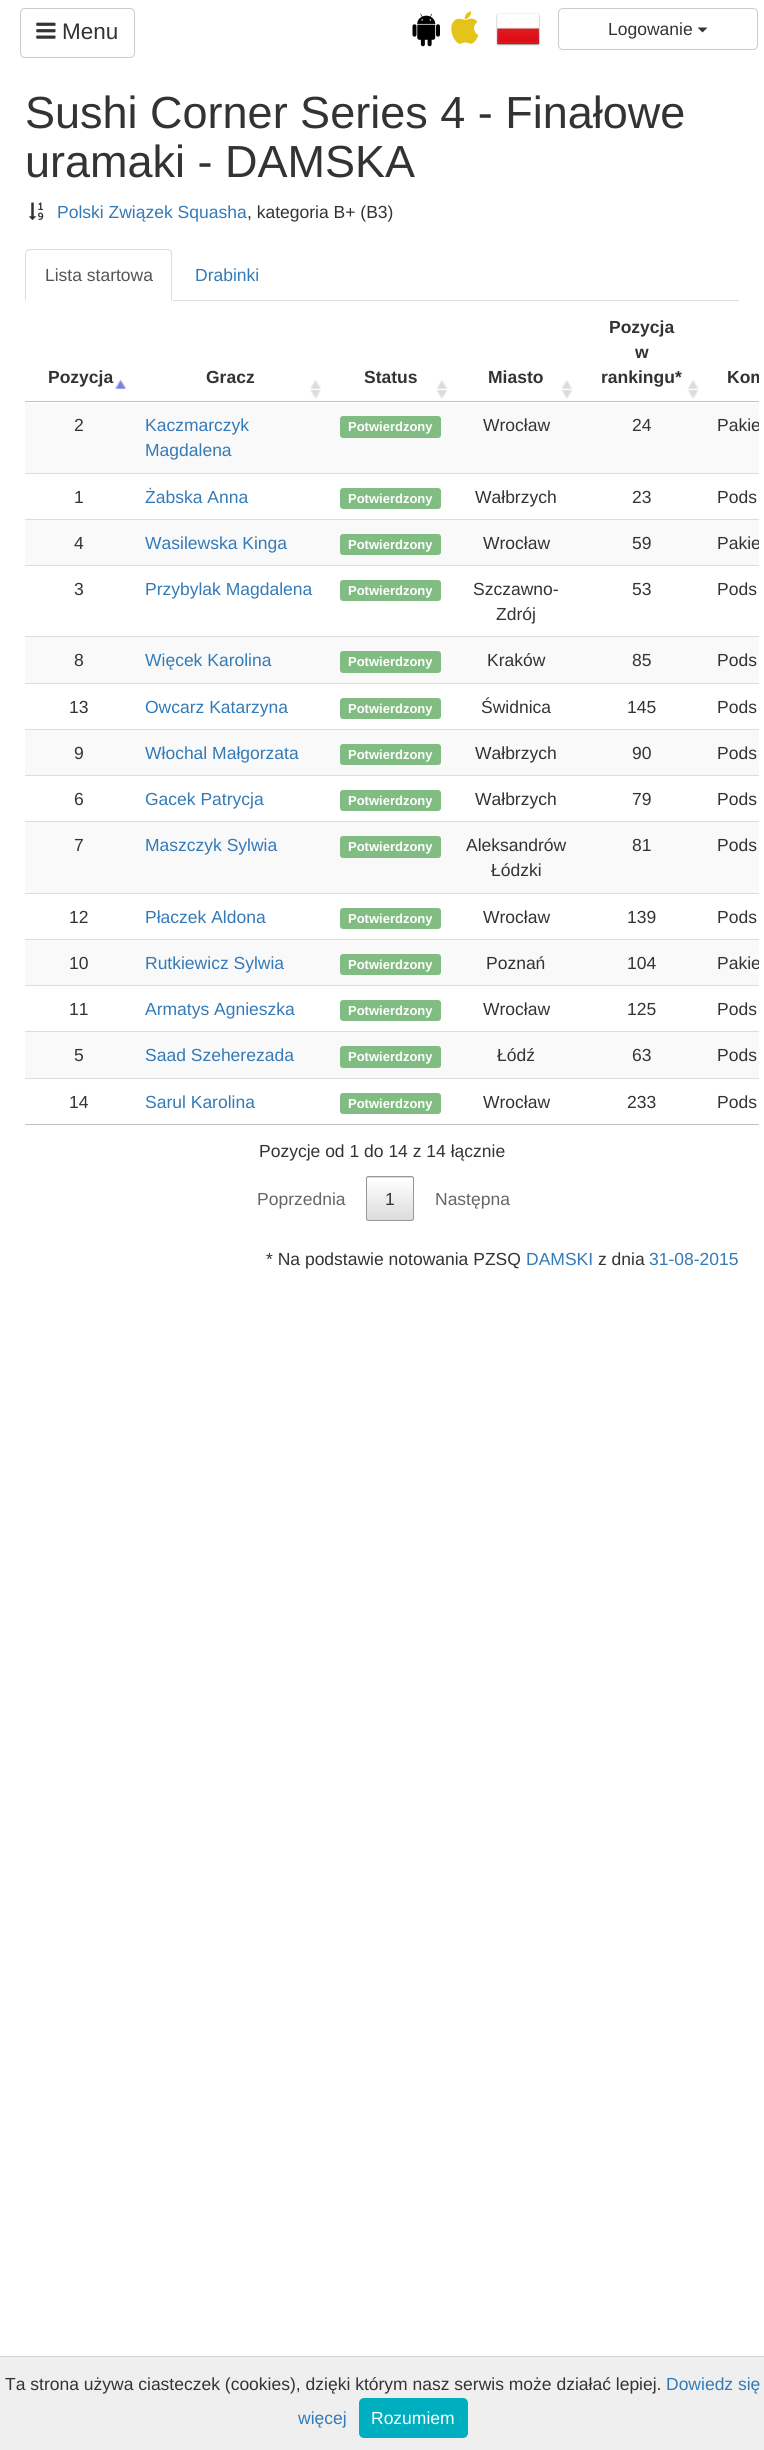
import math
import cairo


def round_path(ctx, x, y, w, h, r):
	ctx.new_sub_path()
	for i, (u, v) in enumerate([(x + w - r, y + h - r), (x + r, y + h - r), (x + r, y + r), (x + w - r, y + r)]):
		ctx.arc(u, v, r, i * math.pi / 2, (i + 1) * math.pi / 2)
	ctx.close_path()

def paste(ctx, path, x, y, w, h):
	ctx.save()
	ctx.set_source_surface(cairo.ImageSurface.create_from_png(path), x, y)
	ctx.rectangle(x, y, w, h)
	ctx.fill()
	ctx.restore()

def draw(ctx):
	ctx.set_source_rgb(1, 1, 1)
	ctx.paint()
	round_path(ctx, 20.5, 8.5, 114, 49, 4.5)
	ctx.set_source_rgb(0.8, 0.8, 0.8)
	ctx.set_line_width(1)
	ctx.stroke()
	paste(ctx, 'media/1.png', 36, 22, 20, 17)
	ctx.select_font_face('Liberation Sans')
	ctx.set_font_size(22.5)
	ctx.set_source_rgb(0.2, 0.2, 0.2)
	ctx.move_to(62, 39)
	ctx.show_text('Menu')
	paste(ctx, 'media/2.png', 412, 13, 28, 34)
	paste(ctx, 'media/3.png', 451, 11, 28, 33)
	paste(ctx, 'media/4.png', 496, 13, 44, 33)
	round_path(ctx, 558.5, 8.5, 199, 41, 4.5)
	ctx.set_source_rgb(0.8, 0.8, 0.8)
	ctx.stroke()
	ctx.set_font_size(17.5)
	ctx.set_source_rgb(0.2, 0.2, 0.2)
	ctx.move_to(608, 35)
	ctx.show_text('Logowanie')
	ctx.new_path()
	ctx.move_to(697.5, 27.5)
	ctx.line_to(707.5, 27.5)
	ctx.line_to(702.5, 32.5)
	ctx.close_path()
	ctx.fill()
	ctx.set_font_size(45)
	ctx.move_to(25, 128)
	ctx.show_text('Sushi Corner Series 4 - Finałowe')
	ctx.move_to(25, 177)
	ctx.show_text('uramaki - DAMSKA')
	paste(ctx, 'media/5.png', 29, 202, 15, 18)
	ctx.set_font_size(17.5)
	ctx.set_source_rgb(0.2, 0.478, 0.718)
	ctx.move_to(57, 218)
	ctx.show_text('Polski Związek Squasha')
	ctx.set_source_rgb(0.2, 0.2, 0.2)
	ctx.move_to(247, 218)
	ctx.show_text(', kategoria B+ (B3)')
	ctx.set_source_rgb(0.867, 0.867, 0.867)
	ctx.rectangle(173, 300, 566, 1)
	ctx.fill()
	ctx.new_path()
	ctx.move_to(30, 249)
	ctx.curve_to(29, 249, 27, 249, 27, 250)
	ctx.line_to(27, 251)
	ctx.line_to(30, 250)
	ctx.line_to(168, 250)
	ctx.line_to(170, 251)
	ctx.line_to(171, 250)
	ctx.curve_to(170, 250, 169, 249, 168, 249)
	ctx.close_path()
	ctx.fill()
	ctx.new_path()
	ctx.move_to(172, 301)
	ctx.line_to(172, 254)
	ctx.curve_to(172, 253, 172, 251, 171, 250)
	ctx.line_to(170, 251)
	ctx.line_to(171, 254)
	ctx.line_to(171, 300)
	ctx.close_path()
	ctx.fill()
	ctx.new_path()
	ctx.move_to(25, 254)
	ctx.line_to(25, 301)
	ctx.line_to(26, 300)
	ctx.line_to(26, 253)
	ctx.line_to(27, 251)
	ctx.line_to(27, 250)
	ctx.curve_to(26, 251, 25, 252, 25, 254)
	ctx.close_path()
	ctx.fill()
	ctx.set_source_rgb(0.333, 0.333, 0.333)
	ctx.move_to(45, 281)
	ctx.show_text('Lista startowa')
	ctx.set_source_rgb(0.2, 0.478, 0.718)
	ctx.move_to(195, 281)
	ctx.show_text('Drabinki')
	ctx.set_source_rgb(0.753, 0.753, 0.753)
	ctx.rectangle(25, 1124, 734, 1)
	ctx.fill()
	paste(ctx, 'media/6.png', 115, 379, 12, 10)
	ctx.rectangle(25, 401, 734, 1)
	ctx.fill()
	ctx.select_font_face('Liberation Sans', cairo.FONT_SLANT_NORMAL, cairo.FONT_WEIGHT_BOLD)
	ctx.set_source_rgb(0.2, 0.2, 0.2)
	ctx.move_to(48, 383)
	ctx.show_text('Pozycja')
	paste(ctx, 'media/7.png', 310, 380, 11, 19)
	ctx.move_to(206, 383)
	ctx.show_text('Gracz')
	paste(ctx, 'media/8.png', 436, 380, 12, 19)
	ctx.move_to(364, 383)
	ctx.show_text('Status')
	paste(ctx, 'media/8.png', 561, 380, 12, 19)
	ctx.move_to(488, 383)
	ctx.show_text('Miasto')
	paste(ctx, 'media/9.png', 687, 380, 12, 19)
	for x, y, s in [
		(609, 333, 'Pozycja'),
		(635, 358, 'w'),
		(601, 383, 'rankingu*'),
	]:
		ctx.move_to(x, y)
		ctx.show_text(s)
	ctx.save()
	ctx.rectangle(6, 19, 753, 1252)
	ctx.clip()
	ctx.move_to(727, 383)
	ctx.show_text('Kom')
	ctx.restore()
	ctx.set_source_rgb(0.976, 0.976, 0.976)
	ctx.rectangle(25, 403, 734, 70)
	ctx.fill()
	ctx.select_font_face('Liberation Sans')
	ctx.set_source_rgb(0.2, 0.2, 0.2)
	ctx.move_to(74, 431)
	ctx.show_text('2')
	ctx.set_source_rgb(0.2, 0.478, 0.718)
	ctx.move_to(145, 431)
	ctx.show_text('Kaczmarczyk')
	ctx.move_to(145, 456)
	ctx.show_text('Magdalena')
	ctx.set_source_rgb(0.506, 0.741, 0.51)
	round_path(ctx, 340, 416, 101, 22, 3)
	ctx.fill()
	ctx.select_font_face('Liberation Sans', cairo.FONT_SLANT_NORMAL, cairo.FONT_WEIGHT_BOLD)
	ctx.set_font_size(13)
	ctx.set_source_rgb(1, 1, 1)
	ctx.move_to(348, 431)
	ctx.show_text('Potwierdzony')
	ctx.select_font_face('Liberation Sans')
	ctx.set_font_size(17.5)
	ctx.set_source_rgb(0.2, 0.2, 0.2)
	ctx.move_to(483, 431)
	ctx.show_text('Wrocław')
	ctx.move_to(632, 431)
	ctx.show_text('24')
	ctx.save()
	ctx.rectangle(6, 19, 753, 1252)
	ctx.clip()
	ctx.move_to(717, 431)
	ctx.show_text('Pakie')
	ctx.restore()
	ctx.move_to(74, 503)
	ctx.show_text('1')
	ctx.set_source_rgb(0.867, 0.867, 0.867)
	ctx.rectangle(25, 473, 734, 1)
	ctx.fill()
	ctx.set_source_rgb(0.2, 0.478, 0.718)
	ctx.move_to(145, 503)
	ctx.show_text('Żabska Anna')
	ctx.set_source_rgb(0.506, 0.741, 0.51)
	round_path(ctx, 340, 488, 101, 21, 3)
	ctx.fill()
	ctx.select_font_face('Liberation Sans', cairo.FONT_SLANT_NORMAL, cairo.FONT_WEIGHT_BOLD)
	ctx.set_font_size(13)
	ctx.set_source_rgb(1, 1, 1)
	ctx.move_to(348, 503)
	ctx.show_text('Potwierdzony')
	ctx.select_font_face('Liberation Sans')
	ctx.set_font_size(17.5)
	ctx.set_source_rgb(0.2, 0.2, 0.2)
	for x, y, s in [
		(475, 503, 'Wałbrzych'),
		(632, 503, '23'),
		(717, 503, 'Pods'),
	]:
		ctx.move_to(x, y)
		ctx.show_text(s)
	ctx.set_source_rgb(0.976, 0.976, 0.976)
	ctx.rectangle(25, 520, 734, 45)
	ctx.fill()
	ctx.set_source_rgb(0.2, 0.2, 0.2)
	ctx.move_to(74, 549)
	ctx.show_text('4')
	ctx.set_source_rgb(0.867, 0.867, 0.867)
	ctx.rectangle(25, 519, 734, 1)
	ctx.fill()
	ctx.set_source_rgb(0.2, 0.478, 0.718)
	ctx.move_to(145, 549)
	ctx.show_text('Wasilewska Kinga')
	ctx.set_source_rgb(0.506, 0.741, 0.51)
	round_path(ctx, 340, 534, 101, 21, 3)
	ctx.fill()
	ctx.select_font_face('Liberation Sans', cairo.FONT_SLANT_NORMAL, cairo.FONT_WEIGHT_BOLD)
	ctx.set_font_size(13)
	ctx.set_source_rgb(1, 1, 1)
	ctx.move_to(348, 549)
	ctx.show_text('Potwierdzony')
	ctx.select_font_face('Liberation Sans')
	ctx.set_font_size(17.5)
	ctx.set_source_rgb(0.2, 0.2, 0.2)
	ctx.move_to(483, 549)
	ctx.show_text('Wrocław')
	ctx.move_to(632, 549)
	ctx.show_text('59')
	ctx.save()
	ctx.rectangle(6, 19, 753, 1252)
	ctx.clip()
	ctx.move_to(717, 549)
	ctx.show_text('Pakie')
	ctx.restore()
	ctx.move_to(74, 595)
	ctx.show_text('3')
	ctx.set_source_rgb(0.867, 0.867, 0.867)
	ctx.rectangle(25, 565, 734, 1)
	ctx.fill()
	ctx.set_source_rgb(0.2, 0.478, 0.718)
	ctx.move_to(145, 595)
	ctx.show_text('Przybylak Magdalena')
	ctx.set_source_rgb(0.506, 0.741, 0.51)
	round_path(ctx, 340, 580, 101, 21, 3)
	ctx.fill()
	ctx.select_font_face('Liberation Sans', cairo.FONT_SLANT_NORMAL, cairo.FONT_WEIGHT_BOLD)
	ctx.set_font_size(13)
	ctx.set_source_rgb(1, 1, 1)
	ctx.move_to(348, 595)
	ctx.show_text('Potwierdzony')
	ctx.select_font_face('Liberation Sans')
	ctx.set_font_size(17.5)
	ctx.set_source_rgb(0.2, 0.2, 0.2)
	for x, y, s in [
		(473, 595, 'Szczawno-'),
		(496, 620, 'Zdrój'),
		(632, 595, '53'),
		(717, 595, 'Pods'),
	]:
		ctx.move_to(x, y)
		ctx.show_text(s)
	ctx.set_source_rgb(0.976, 0.976, 0.976)
	ctx.rectangle(25, 637, 734, 46)
	ctx.fill()
	ctx.set_source_rgb(0.2, 0.2, 0.2)
	ctx.move_to(74, 666)
	ctx.show_text('8')
	ctx.set_source_rgb(0.867, 0.867, 0.867)
	ctx.rectangle(25, 636, 734, 1)
	ctx.fill()
	ctx.set_source_rgb(0.2, 0.478, 0.718)
	ctx.move_to(145, 666)
	ctx.show_text('Więcek Karolina')
	ctx.set_source_rgb(0.506, 0.741, 0.51)
	round_path(ctx, 340, 651, 101, 22, 3)
	ctx.fill()
	ctx.select_font_face('Liberation Sans', cairo.FONT_SLANT_NORMAL, cairo.FONT_WEIGHT_BOLD)
	ctx.set_font_size(13)
	ctx.set_source_rgb(1, 1, 1)
	ctx.move_to(348, 666)
	ctx.show_text('Potwierdzony')
	ctx.select_font_face('Liberation Sans')
	ctx.set_font_size(17.5)
	ctx.set_source_rgb(0.2, 0.2, 0.2)
	for x, y, s in [
		(487, 666, 'Kraków'),
		(632, 666, '85'),
		(717, 666, 'Pods'),
		(69, 713, '13'),
	]:
		ctx.move_to(x, y)
		ctx.show_text(s)
	ctx.set_source_rgb(0.867, 0.867, 0.867)
	ctx.rectangle(25, 683, 734, 1)
	ctx.fill()
	ctx.set_source_rgb(0.2, 0.478, 0.718)
	ctx.move_to(145, 713)
	ctx.show_text('Owcarz Katarzyna')
	ctx.set_source_rgb(0.506, 0.741, 0.51)
	round_path(ctx, 340, 698, 101, 21, 3)
	ctx.fill()
	ctx.select_font_face('Liberation Sans', cairo.FONT_SLANT_NORMAL, cairo.FONT_WEIGHT_BOLD)
	ctx.set_font_size(13)
	ctx.set_source_rgb(1, 1, 1)
	ctx.move_to(348, 713)
	ctx.show_text('Potwierdzony')
	ctx.select_font_face('Liberation Sans')
	ctx.set_font_size(17.5)
	ctx.set_source_rgb(0.2, 0.2, 0.2)
	for x, y, s in [
		(481, 713, 'Świdnica'),
		(627, 713, '145'),
		(717, 713, 'Pods'),
	]:
		ctx.move_to(x, y)
		ctx.show_text(s)
	ctx.set_source_rgb(0.976, 0.976, 0.976)
	ctx.rectangle(25, 730, 734, 45)
	ctx.fill()
	ctx.set_source_rgb(0.2, 0.2, 0.2)
	ctx.move_to(74, 759)
	ctx.show_text('9')
	ctx.set_source_rgb(0.867, 0.867, 0.867)
	ctx.rectangle(25, 729, 734, 1)
	ctx.fill()
	ctx.set_source_rgb(0.2, 0.478, 0.718)
	ctx.move_to(145, 759)
	ctx.show_text('Włochal Małgorzata')
	ctx.set_source_rgb(0.506, 0.741, 0.51)
	round_path(ctx, 340, 744, 101, 21, 3)
	ctx.fill()
	ctx.select_font_face('Liberation Sans', cairo.FONT_SLANT_NORMAL, cairo.FONT_WEIGHT_BOLD)
	ctx.set_font_size(13)
	ctx.set_source_rgb(1, 1, 1)
	ctx.move_to(348, 759)
	ctx.show_text('Potwierdzony')
	ctx.select_font_face('Liberation Sans')
	ctx.set_font_size(17.5)
	ctx.set_source_rgb(0.2, 0.2, 0.2)
	for x, y, s in [
		(475, 759, 'Wałbrzych'),
		(632, 759, '90'),
		(717, 759, 'Pods'),
		(74, 805, '6'),
	]:
		ctx.move_to(x, y)
		ctx.show_text(s)
	ctx.set_source_rgb(0.867, 0.867, 0.867)
	ctx.rectangle(25, 775, 734, 1)
	ctx.fill()
	ctx.set_source_rgb(0.2, 0.478, 0.718)
	ctx.move_to(145, 805)
	ctx.show_text('Gacek Patrycja')
	ctx.set_source_rgb(0.506, 0.741, 0.51)
	round_path(ctx, 340, 790, 101, 21, 3)
	ctx.fill()
	ctx.select_font_face('Liberation Sans', cairo.FONT_SLANT_NORMAL, cairo.FONT_WEIGHT_BOLD)
	ctx.set_font_size(13)
	ctx.set_source_rgb(1, 1, 1)
	ctx.move_to(348, 805)
	ctx.show_text('Potwierdzony')
	ctx.select_font_face('Liberation Sans')
	ctx.set_font_size(17.5)
	ctx.set_source_rgb(0.2, 0.2, 0.2)
	for x, y, s in [
		(475, 805, 'Wałbrzych'),
		(632, 805, '79'),
		(717, 805, 'Pods'),
	]:
		ctx.move_to(x, y)
		ctx.show_text(s)
	ctx.set_source_rgb(0.976, 0.976, 0.976)
	ctx.rectangle(25, 822, 734, 71)
	ctx.fill()
	ctx.set_source_rgb(0.2, 0.2, 0.2)
	ctx.move_to(74, 851)
	ctx.show_text('7')
	ctx.set_source_rgb(0.867, 0.867, 0.867)
	ctx.rectangle(25, 821, 734, 1)
	ctx.fill()
	ctx.set_source_rgb(0.2, 0.478, 0.718)
	ctx.move_to(145, 851)
	ctx.show_text('Maszczyk Sylwia')
	ctx.set_source_rgb(0.506, 0.741, 0.51)
	round_path(ctx, 340, 836, 101, 22, 3)
	ctx.fill()
	ctx.select_font_face('Liberation Sans', cairo.FONT_SLANT_NORMAL, cairo.FONT_WEIGHT_BOLD)
	ctx.set_font_size(13)
	ctx.set_source_rgb(1, 1, 1)
	ctx.move_to(348, 851)
	ctx.show_text('Potwierdzony')
	ctx.select_font_face('Liberation Sans')
	ctx.set_font_size(17.5)
	ctx.set_source_rgb(0.2, 0.2, 0.2)
	for x, y, s in [
		(466, 851, 'Aleksandrów'),
		(491, 876, 'Łódzki'),
		(632, 851, '81'),
		(717, 851, 'Pods'),
		(69, 923, '12'),
	]:
		ctx.move_to(x, y)
		ctx.show_text(s)
	ctx.set_source_rgb(0.867, 0.867, 0.867)
	ctx.rectangle(25, 893, 734, 1)
	ctx.fill()
	ctx.set_source_rgb(0.2, 0.478, 0.718)
	ctx.move_to(145, 923)
	ctx.show_text('Płaczek Aldona')
	ctx.set_source_rgb(0.506, 0.741, 0.51)
	round_path(ctx, 340, 908, 101, 21, 3)
	ctx.fill()
	ctx.select_font_face('Liberation Sans', cairo.FONT_SLANT_NORMAL, cairo.FONT_WEIGHT_BOLD)
	ctx.set_font_size(13)
	ctx.set_source_rgb(1, 1, 1)
	ctx.move_to(348, 923)
	ctx.show_text('Potwierdzony')
	ctx.select_font_face('Liberation Sans')
	ctx.set_font_size(17.5)
	ctx.set_source_rgb(0.2, 0.2, 0.2)
	for x, y, s in [
		(483, 923, 'Wrocław'),
		(627, 923, '139'),
		(717, 923, 'Pods'),
	]:
		ctx.move_to(x, y)
		ctx.show_text(s)
	ctx.set_source_rgb(0.976, 0.976, 0.976)
	ctx.rectangle(25, 940, 734, 45)
	ctx.fill()
	ctx.set_source_rgb(0.2, 0.2, 0.2)
	ctx.move_to(69, 969)
	ctx.show_text('10')
	ctx.set_source_rgb(0.867, 0.867, 0.867)
	ctx.rectangle(25, 939, 734, 1)
	ctx.fill()
	ctx.set_source_rgb(0.2, 0.478, 0.718)
	ctx.move_to(145, 969)
	ctx.show_text('Rutkiewicz Sylwia')
	ctx.set_source_rgb(0.506, 0.741, 0.51)
	round_path(ctx, 340, 954, 101, 21, 3)
	ctx.fill()
	ctx.select_font_face('Liberation Sans', cairo.FONT_SLANT_NORMAL, cairo.FONT_WEIGHT_BOLD)
	ctx.set_font_size(13)
	ctx.set_source_rgb(1, 1, 1)
	ctx.move_to(348, 969)
	ctx.show_text('Potwierdzony')
	ctx.select_font_face('Liberation Sans')
	ctx.set_font_size(17.5)
	ctx.set_source_rgb(0.2, 0.2, 0.2)
	ctx.move_to(486, 969)
	ctx.show_text('Poznań')
	ctx.move_to(627, 969)
	ctx.show_text('104')
	ctx.save()
	ctx.rectangle(6, 19, 753, 1252)
	ctx.clip()
	ctx.move_to(717, 969)
	ctx.show_text('Pakie')
	ctx.restore()
	ctx.move_to(69, 1015)
	ctx.show_text('11')
	ctx.set_source_rgb(0.867, 0.867, 0.867)
	ctx.rectangle(25, 985, 734, 1)
	ctx.fill()
	ctx.set_source_rgb(0.2, 0.478, 0.718)
	ctx.move_to(145, 1015)
	ctx.show_text('Armatys Agnieszka')
	ctx.set_source_rgb(0.506, 0.741, 0.51)
	round_path(ctx, 340, 1000, 101, 21, 3)
	ctx.fill()
	ctx.select_font_face('Liberation Sans', cairo.FONT_SLANT_NORMAL, cairo.FONT_WEIGHT_BOLD)
	ctx.set_font_size(13)
	ctx.set_source_rgb(1, 1, 1)
	ctx.move_to(348, 1015)
	ctx.show_text('Potwierdzony')
	ctx.select_font_face('Liberation Sans')
	ctx.set_font_size(17.5)
	ctx.set_source_rgb(0.2, 0.2, 0.2)
	for x, y, s in [
		(483, 1015, 'Wrocław'),
		(627, 1015, '125'),
		(717, 1015, 'Pods'),
	]:
		ctx.move_to(x, y)
		ctx.show_text(s)
	ctx.set_source_rgb(0.976, 0.976, 0.976)
	ctx.rectangle(25, 1032, 734, 46)
	ctx.fill()
	ctx.set_source_rgb(0.2, 0.2, 0.2)
	ctx.move_to(74, 1061)
	ctx.show_text('5')
	ctx.set_source_rgb(0.867, 0.867, 0.867)
	ctx.rectangle(25, 1031, 734, 1)
	ctx.fill()
	ctx.set_source_rgb(0.2, 0.478, 0.718)
	ctx.move_to(145, 1061)
	ctx.show_text('Saad Szeherezada')
	ctx.set_source_rgb(0.506, 0.741, 0.51)
	round_path(ctx, 340, 1046, 101, 22, 3)
	ctx.fill()
	ctx.select_font_face('Liberation Sans', cairo.FONT_SLANT_NORMAL, cairo.FONT_WEIGHT_BOLD)
	ctx.set_font_size(13)
	ctx.set_source_rgb(1, 1, 1)
	ctx.move_to(348, 1061)
	ctx.show_text('Potwierdzony')
	ctx.select_font_face('Liberation Sans')
	ctx.set_font_size(17.5)
	ctx.set_source_rgb(0.2, 0.2, 0.2)
	for x, y, s in [
		(497, 1061, 'Łódź'),
		(632, 1061, '63'),
		(717, 1061, 'Pods'),
		(69, 1108, '14'),
	]:
		ctx.move_to(x, y)
		ctx.show_text(s)
	ctx.set_source_rgb(0.867, 0.867, 0.867)
	ctx.rectangle(25, 1078, 734, 1)
	ctx.fill()
	ctx.set_source_rgb(0.2, 0.478, 0.718)
	ctx.move_to(145, 1108)
	ctx.show_text('Sarul Karolina')
	ctx.set_source_rgb(0.506, 0.741, 0.51)
	round_path(ctx, 340, 1093, 101, 21, 3)
	ctx.fill()
	ctx.select_font_face('Liberation Sans', cairo.FONT_SLANT_NORMAL, cairo.FONT_WEIGHT_BOLD)
	ctx.set_font_size(13)
	ctx.set_source_rgb(1, 1, 1)
	ctx.move_to(348, 1108)
	ctx.show_text('Potwierdzony')
	ctx.select_font_face('Liberation Sans')
	ctx.set_font_size(17.5)
	ctx.set_source_rgb(0.2, 0.2, 0.2)
	for x, y, s in [
		(483, 1108, 'Wrocław'),
		(627, 1108, '233'),
		(717, 1108, 'Pods'),
		(259, 1157, 'Pozycje od 1 do 14 z 14 łącznie'),
	]:
		ctx.move_to(x, y)
		ctx.show_text(s)
	ctx.set_source_rgb(0.4, 0.4, 0.4)
	ctx.move_to(257, 1205)
	ctx.show_text('Poprzednia')
	ctx.save()
	round_path(ctx, 366, 1176, 48, 45, 2.5)
	ctx.clip()
	gradient = cairo.LinearGradient(390, 1135, 390, 1178)
	gradient.add_color_stop_rgba(0, 1, 1, 1, 1)
	gradient.add_color_stop_rgba(1, 0.863, 0.863, 0.863, 1)
	ctx.set_source(gradient)
	ctx.rectangle(366, 1176, 48, 2)
	ctx.fill()
	ctx.restore()
	gradient = cairo.LinearGradient(390, 1178, 390, 1220)
	gradient.add_color_stop_rgba(0, 1, 1, 1, 1)
	gradient.add_color_stop_rgba(1, 0.863, 0.863, 0.863, 1)
	ctx.set_source(gradient)
	ctx.rectangle(366, 1181, 48, 39)
	ctx.fill()
	round_path(ctx, 366.5, 1176.5, 47, 44, 2)
	ctx.set_source_rgb(0.592, 0.592, 0.592)
	ctx.stroke()
	ctx.set_source_rgb(0.2, 0.2, 0.2)
	ctx.move_to(385, 1205)
	ctx.show_text('1')
	ctx.set_source_rgb(0.4, 0.4, 0.4)
	ctx.move_to(435, 1205)
	ctx.show_text('Następna')
	ctx.set_source_rgb(0.2, 0.2, 0.2)
	ctx.move_to(266, 1265)
	ctx.show_text('* Na podstawie notowania PZSQ')
	ctx.set_source_rgb(0.2, 0.478, 0.718)
	ctx.move_to(526, 1265)
	ctx.show_text('DAMSKI')
	ctx.set_source_rgb(0.2, 0.2, 0.2)
	ctx.move_to(598, 1265)
	ctx.show_text('z dnia')
	ctx.set_source_rgb(0.2, 0.478, 0.718)
	ctx.move_to(649, 1265)
	ctx.show_text('31-08-2015')
	ctx.set_source_rgb(0.937, 0.937, 0.937)
	ctx.rectangle(0, 2357, 764, 93)
	ctx.fill()
	ctx.set_source_rgb(0.827, 0.816, 0.816)
	ctx.rectangle(0, 2356, 764, 1)
	ctx.fill()
	ctx.set_source_rgb(0.2, 0.2, 0.2)
	ctx.move_to(5, 2390)
	ctx.show_text('Ta strona używa ciasteczek (cookies), dzięki którym nasz serwis może działać lepiej.')
	ctx.set_source_rgb(0.2, 0.478, 0.718)
	ctx.move_to(666, 2390)
	ctx.show_text('Dowiedz się')
	ctx.move_to(298, 2424)
	ctx.show_text('więcej')
	ctx.set_source_rgb(0, 0.686, 0.749)
	round_path(ctx, 359, 2398, 109, 40, 5)
	ctx.fill()
	ctx.set_source_rgb(1, 1, 1)
	ctx.move_to(371, 2424)
	ctx.show_text('Rozumiem')


surface = cairo.ImageSurface(cairo.FORMAT_RGB24, 764, 2450)
ctx = cairo.Context(surface)
options = cairo.FontOptions()
options.set_hint_metrics(cairo.HINT_METRICS_OFF)
options.set_hint_style(cairo.HINT_STYLE_NONE)
ctx.set_font_options(options)
ctx.set_miter_limit(4)
draw(ctx)
surface.write_to_png('image.png')
